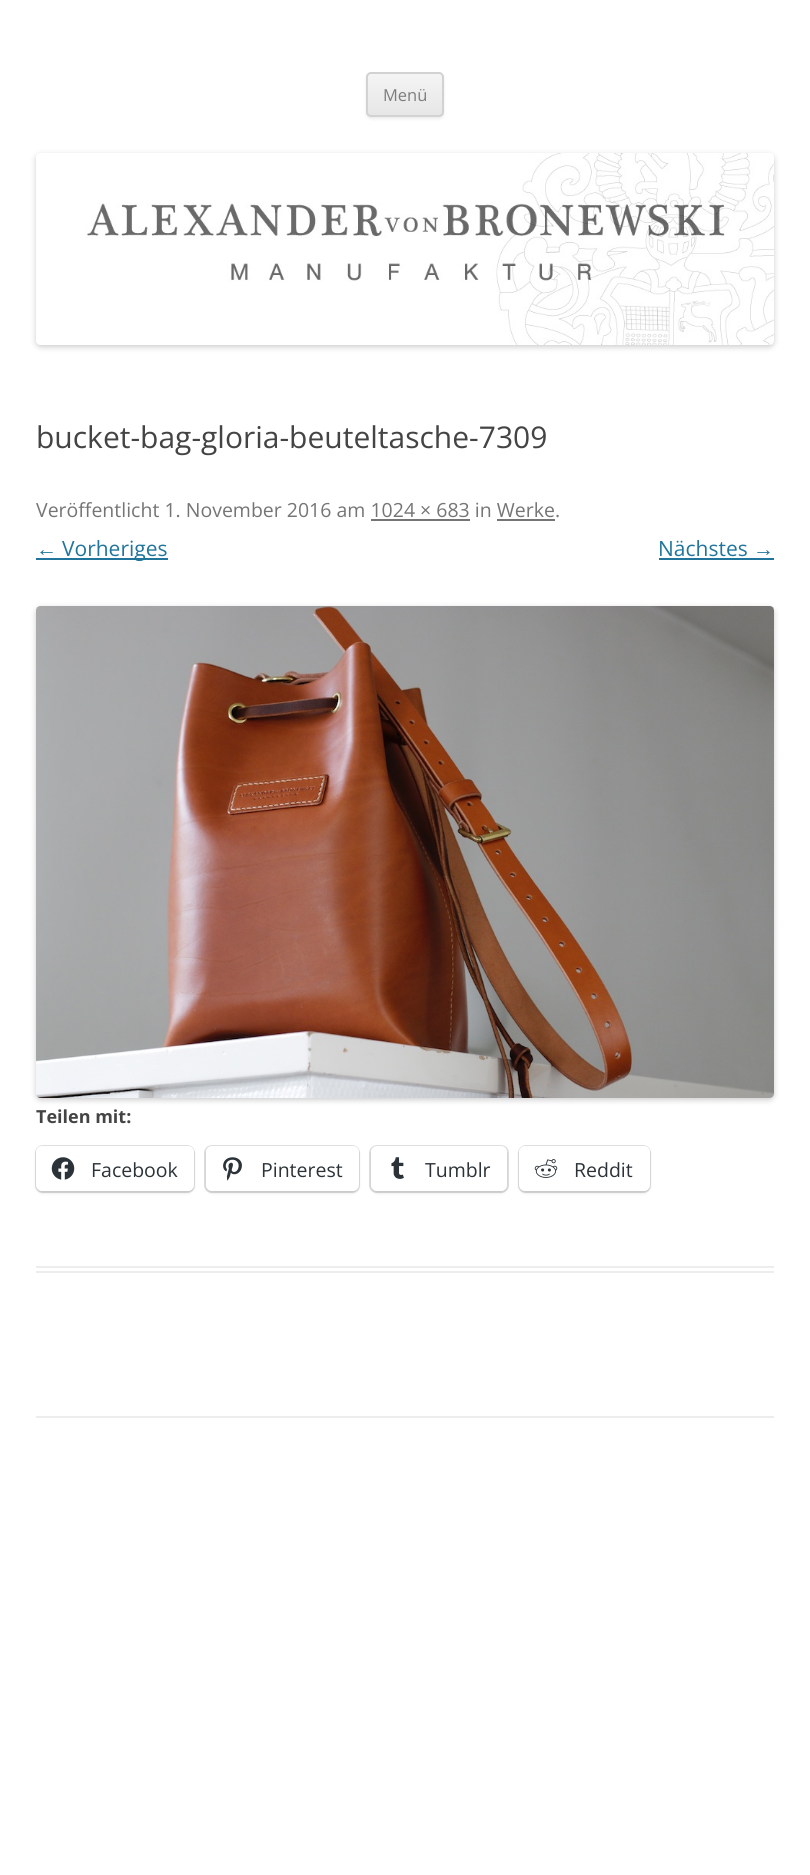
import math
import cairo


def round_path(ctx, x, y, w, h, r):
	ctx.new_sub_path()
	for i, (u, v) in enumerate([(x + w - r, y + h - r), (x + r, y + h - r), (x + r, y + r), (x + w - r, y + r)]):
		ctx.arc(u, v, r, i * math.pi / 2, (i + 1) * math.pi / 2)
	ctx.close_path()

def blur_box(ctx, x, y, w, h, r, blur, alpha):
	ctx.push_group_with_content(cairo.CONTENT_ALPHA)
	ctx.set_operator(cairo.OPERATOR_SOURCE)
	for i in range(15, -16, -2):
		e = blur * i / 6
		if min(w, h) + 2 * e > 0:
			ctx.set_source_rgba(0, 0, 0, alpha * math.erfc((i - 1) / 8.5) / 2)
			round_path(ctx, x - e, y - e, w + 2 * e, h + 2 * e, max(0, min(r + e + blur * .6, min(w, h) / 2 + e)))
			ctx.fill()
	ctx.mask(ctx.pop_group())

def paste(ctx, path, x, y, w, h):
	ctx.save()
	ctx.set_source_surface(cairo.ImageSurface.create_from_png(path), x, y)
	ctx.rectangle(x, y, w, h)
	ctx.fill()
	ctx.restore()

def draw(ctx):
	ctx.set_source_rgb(1, 1, 1)
	ctx.paint()
	ctx.set_source_rgb(0.251, 0.251, 0.251)
	blur_box(ctx, 366, 74, 78, 45, 5, 1.5, 0.1)
	ctx.save()
	round_path(ctx, 366, 72, 78, 45, 5)
	ctx.clip()
	gradient = cairo.LinearGradient(405, 74, 405, 116)
	gradient.add_color_stop_rgba(0, 0.957, 0.957, 0.957, 1)
	gradient.add_color_stop_rgba(1, 0.902, 0.902, 0.902, 1)
	ctx.set_source(gradient)
	ctx.rectangle(366, 74, 78, 42)
	ctx.fill()
	ctx.restore()
	round_path(ctx, 367, 73, 76, 43, 4)
	ctx.set_source_rgb(0.824, 0.824, 0.824)
	ctx.stroke()
	ctx.select_font_face('Open Sans')
	ctx.set_font_size(16.5)
	ctx.set_source_rgb(0.486, 0.486, 0.486)
	ctx.move_to(383, 101)
	ctx.show_text('Menü')
	ctx.set_source_rgb(0, 0, 0)
	blur_box(ctx, 36, 155, 738, 192, 5, 3, 0.2)
	paste(ctx, 'media/1.png', 36, 153, 738, 192)
	ctx.set_source_rgb(0.929, 0.929, 0.929)
	ctx.rectangle(36, 1266, 738, 2)
	ctx.fill()
	ctx.rectangle(36, 1271, 738, 2)
	ctx.fill()
	ctx.set_font_size(30)
	ctx.set_source_rgb(0.267, 0.267, 0.267)
	ctx.move_to(36, 448)
	ctx.show_text('bucket-bag-gloria-beuteltasche-7309')
	ctx.set_font_size(19.5)
	ctx.set_source_rgb(0.459, 0.459, 0.459)
	ctx.move_to(36, 517)
	ctx.show_text('Veröffentlicht 1. November 2016 am 1024 × 683 in Werke.')
	ctx.rectangle(371, 519, 99, 2)
	ctx.fill()
	ctx.rectangle(497, 519, 58, 2)
	ctx.fill()
	ctx.select_font_face('Liberation Sans')
	ctx.set_font_size(21)
	ctx.set_source_rgb(0.129, 0.459, 0.608)
	ctx.move_to(36, 556)
	ctx.show_text('←')
	ctx.rectangle(36, 558, 132, 2)
	ctx.fill()
	ctx.select_font_face('Open Sans')
	ctx.move_to(62, 556)
	ctx.show_text('Vorheriges')
	ctx.move_to(658, 556)
	ctx.show_text('Nächstes')
	ctx.select_font_face('Liberation Sans')
	ctx.move_to(753, 556)
	ctx.show_text('→')
	ctx.rectangle(659, 558, 115, 2)
	ctx.fill()
	ctx.set_source_rgb(0, 0, 0)
	blur_box(ctx, 36, 608, 738, 492, 5, 3, 0.2)
	paste(ctx, 'media/2.png', 36, 606, 738, 492)
	ctx.select_font_face('Open Sans', cairo.FONT_SLANT_NORMAL, cairo.FONT_WEIGHT_BOLD)
	ctx.set_font_size(18)
	ctx.set_source_rgb(0.267, 0.267, 0.267)
	ctx.move_to(36, 1123)
	ctx.show_text('Teilen mit:')
	round_path(ctx, 36, 1146, 158, 46, 7)
	ctx.set_source_rgb(0.878, 0.878, 0.878)
	ctx.stroke()
	ctx.set_source_rgb(0, 0, 0)
	blur_box(ctx, 36, 1148, 158, 45, 6, 1.5, 0.12)
	ctx.set_source_rgb(1, 1, 1)
	round_path(ctx, 36, 1146, 158, 45, 6)
	ctx.fill()
	paste(ctx, 'media/3.png', 51, 1157, 24, 23)
	ctx.select_font_face('Open Sans')
	ctx.set_font_size(19.5)
	ctx.set_source_rgb(0.173, 0.2, 0.22)
	ctx.move_to(91, 1177)
	ctx.show_text('Facebook')
	round_path(ctx, 205, 1146, 154, 46, 7)
	ctx.set_source_rgb(0.878, 0.878, 0.878)
	ctx.stroke()
	ctx.set_source_rgb(0, 0, 0)
	blur_box(ctx, 206, 1148, 153, 45, 6, 1.5, 0.12)
	ctx.set_source_rgb(1, 1, 1)
	round_path(ctx, 206, 1146, 153, 45, 6)
	ctx.fill()
	paste(ctx, 'media/4.png', 223, 1157, 19, 24)
	ctx.set_source_rgb(0.173, 0.2, 0.22)
	ctx.move_to(261, 1177)
	ctx.show_text('Pinterest')
	round_path(ctx, 370, 1146, 138, 46, 7)
	ctx.set_source_rgb(0.878, 0.878, 0.878)
	ctx.stroke()
	ctx.set_source_rgb(0, 0, 0)
	blur_box(ctx, 371, 1148, 136, 45, 6, 1.5, 0.12)
	ctx.set_source_rgb(1, 1, 1)
	round_path(ctx, 371, 1146, 136, 45, 6)
	ctx.fill()
	paste(ctx, 'media/5.png', 391, 1157, 13, 22)
	ctx.set_source_rgb(0.173, 0.2, 0.22)
	ctx.move_to(425, 1177)
	ctx.show_text('Tumblr')
	round_path(ctx, 519, 1146, 131, 46, 7)
	ctx.set_source_rgb(0.878, 0.878, 0.878)
	ctx.stroke()
	ctx.set_source_rgb(0, 0, 0)
	blur_box(ctx, 519, 1148, 131, 45, 6, 1.5, 0.12)
	ctx.set_source_rgb(1, 1, 1)
	round_path(ctx, 519, 1146, 131, 45, 6)
	ctx.fill()
	paste(ctx, 'media/6.png', 534, 1159, 24, 19)
	ctx.set_source_rgb(0.173, 0.2, 0.22)
	ctx.move_to(574, 1177)
	ctx.show_text('Reddit')
	ctx.set_source_rgb(0.929, 0.929, 0.929)
	ctx.rectangle(36, 1416, 738, 2)
	ctx.fill()


surface = cairo.ImageSurface(cairo.FORMAT_RGB24, 810, 1875)
ctx = cairo.Context(surface)
options = cairo.FontOptions()
options.set_hint_metrics(cairo.HINT_METRICS_OFF)
options.set_hint_style(cairo.HINT_STYLE_NONE)
ctx.set_font_options(options)
ctx.set_miter_limit(4)
draw(ctx)
surface.write_to_png('image.png')
